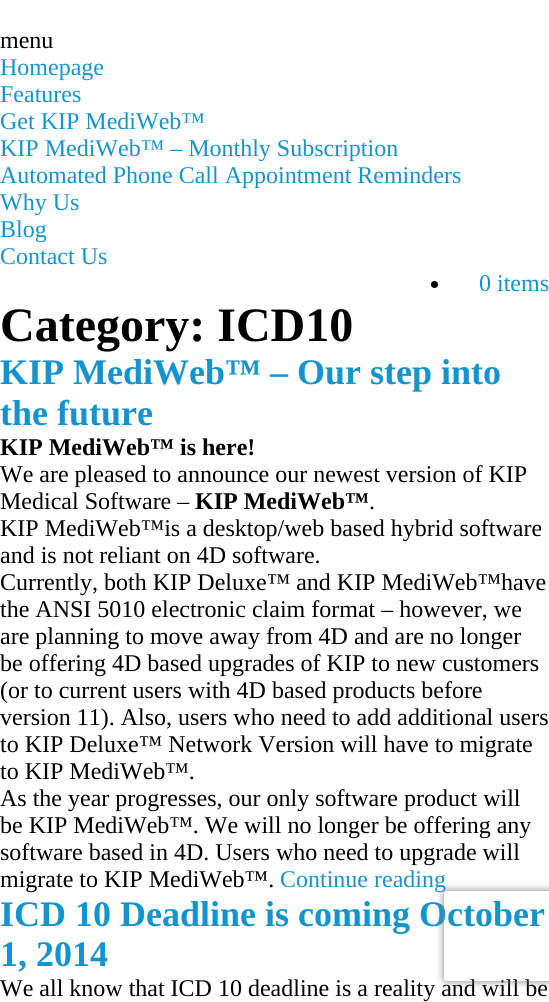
import math
import cairo


def round_path(ctx, x, y, w, h, r):
	ctx.new_sub_path()
	for i, (u, v) in enumerate([(x + w - r, y + h - r), (x + r, y + h - r), (x + r, y + r), (x + w - r, y + r)]):
		ctx.arc(u, v, r, i * math.pi / 2, (i + 1) * math.pi / 2)
	ctx.close_path()

def blur_box(ctx, x, y, w, h, r, blur, alpha):
	ctx.push_group_with_content(cairo.CONTENT_ALPHA)
	ctx.set_operator(cairo.OPERATOR_SOURCE)
	for i in range(15, -16, -2):
		e = blur * i / 6
		if min(w, h) + 2 * e > 0:
			ctx.set_source_rgba(0, 0, 0, alpha * math.erfc((i - 1) / 8.5) / 2)
			round_path(ctx, x - e, y - e, w + 2 * e, h + 2 * e, max(0, min(r + e + blur * .6, min(w, h) / 2 + e)))
			ctx.fill()
	ctx.mask(ctx.pop_group())

def draw(ctx):
	ctx.set_source_rgb(1, 1, 1)
	ctx.paint()
	ctx.select_font_face('Liberation Serif')
	ctx.set_font_size(24)
	ctx.set_source_rgb(0, 0, 0)
	ctx.move_to(0, 48)
	ctx.show_text('menu')
	ctx.set_source_rgb(0.082, 0.58, 0.812)
	for x, y, s in [
		(0, 75, 'Homepage'),
		(0, 102, 'Features'),
		(0, 129, 'Get KIP MediWeb™'),
		(0, 156, 'KIP MediWeb™ – Monthly Subscription'),
		(0, 183, 'Automated Phone Call Appointment Reminders'),
		(0, 210, 'Why Us'),
		(0, 237, 'Blog'),
		(0, 264, 'Contact Us'),
	]:
		ctx.move_to(x, y)
		ctx.show_text(s)
	ctx.set_source_rgb(0, 0, 0)
	ctx.new_path()
	ctx.arc(434.5, 284.5, 3.5, 0, 2 * math.pi)
	ctx.fill()
	ctx.set_source_rgb(0.082, 0.58, 0.812)
	ctx.move_to(479, 291)
	ctx.show_text('0 items')
	ctx.select_font_face('Liberation Serif', cairo.FONT_SLANT_NORMAL, cairo.FONT_WEIGHT_BOLD)
	ctx.set_font_size(48)
	ctx.set_source_rgb(0, 0, 0)
	ctx.move_to(0, 341)
	ctx.show_text('Category: ICD10')
	ctx.set_font_size(36)
	ctx.set_source_rgb(0.082, 0.58, 0.812)
	ctx.move_to(0, 384)
	ctx.show_text('KIP MediWeb™ – Our step into')
	ctx.move_to(0, 425)
	ctx.show_text('the future')
	ctx.set_font_size(24)
	ctx.set_source_rgb(0, 0, 0)
	ctx.move_to(0, 455)
	ctx.show_text('KIP MediWeb™ is here!')
	ctx.select_font_face('Liberation Serif')
	ctx.move_to(0, 482)
	ctx.show_text('We are pleased to announce our newest version of KIP')
	ctx.move_to(0, 509)
	ctx.show_text('Medical Software –')
	ctx.select_font_face('Liberation Serif', cairo.FONT_SLANT_NORMAL, cairo.FONT_WEIGHT_BOLD)
	ctx.move_to(195, 509)
	ctx.show_text('KIP MediWeb™')
	ctx.select_font_face('Liberation Serif')
	for x, y, s in [
		(369, 509, '.'),
		(0, 536, 'KIP MediWeb™is a desktop/web based hybrid software'),
		(0, 563, 'and is not reliant on 4D software.'),
		(0, 590, 'Currently, both KIP Deluxe™ and KIP MediWeb™have'),
		(0, 617, 'the ANSI 5010 electronic claim format – however, we'),
		(0, 644, 'are planning to move away from 4D and are no longer'),
		(0, 671, 'be offering 4D based upgrades of KIP to new customers'),
		(0, 698, '(or to current users with 4D based products before'),
		(0, 725, 'version 11). Also, users who need to add additional users'),
		(0, 752, 'to KIP Deluxe™ Network Version will have to migrate'),
		(0, 779, 'to KIP MediWeb™.'),
		(0, 806, 'As the year progresses, our only software product will'),
		(0, 833, 'be KIP MediWeb™. We will no longer be offering any'),
		(0, 860, 'software based in 4D. Users who need to upgrade will'),
		(0, 887, 'migrate to KIP MediWeb™.'),
	]:
		ctx.move_to(x, y)
		ctx.show_text(s)
	ctx.set_source_rgb(0.082, 0.58, 0.812)
	ctx.move_to(280, 887)
	ctx.show_text('Continue reading')
	ctx.select_font_face('Liberation Serif', cairo.FONT_SLANT_NORMAL, cairo.FONT_WEIGHT_BOLD)
	ctx.set_font_size(36)
	ctx.move_to(0, 926)
	ctx.show_text('ICD 10 Deadline is coming October')
	ctx.move_to(0, 966)
	ctx.show_text('1, 2014')
	ctx.select_font_face('Liberation Serif')
	ctx.set_font_size(24)
	ctx.set_source_rgb(0, 0, 0)
	ctx.move_to(0, 996)
	ctx.show_text('We all know that ICD 10 deadline is a reality and will be')
	ctx.save()
	ctx.set_fill_rule(cairo.FILL_RULE_EVEN_ODD)
	ctx.new_path()
	ctx.move_to(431, 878)
	ctx.line_to(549, 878)
	ctx.line_to(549, 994)
	ctx.line_to(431, 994)
	ctx.close_path()
	ctx.move_to(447, 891)
	ctx.line_to(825, 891)
	ctx.curve_to(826.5, 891, 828, 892.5, 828, 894)
	ctx.line_to(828, 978)
	ctx.curve_to(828, 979.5, 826.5, 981, 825, 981)
	ctx.line_to(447, 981)
	ctx.curve_to(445.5, 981, 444, 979.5, 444, 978)
	ctx.line_to(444, 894)
	ctx.curve_to(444, 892.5, 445.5, 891, 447, 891)
	ctx.close_path()
	ctx.clip()
	ctx.set_source_rgb(0.502, 0.502, 0.502)
	blur_box(ctx, 444, 891, 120, 90, 3, 4, 1)
	ctx.restore()


surface = cairo.ImageSurface(cairo.FORMAT_RGB24, 549, 1002)
ctx = cairo.Context(surface)
options = cairo.FontOptions()
options.set_hint_metrics(cairo.HINT_METRICS_OFF)
options.set_hint_style(cairo.HINT_STYLE_NONE)
ctx.set_font_options(options)
ctx.set_miter_limit(4)
draw(ctx)
surface.write_to_png('image.png')
